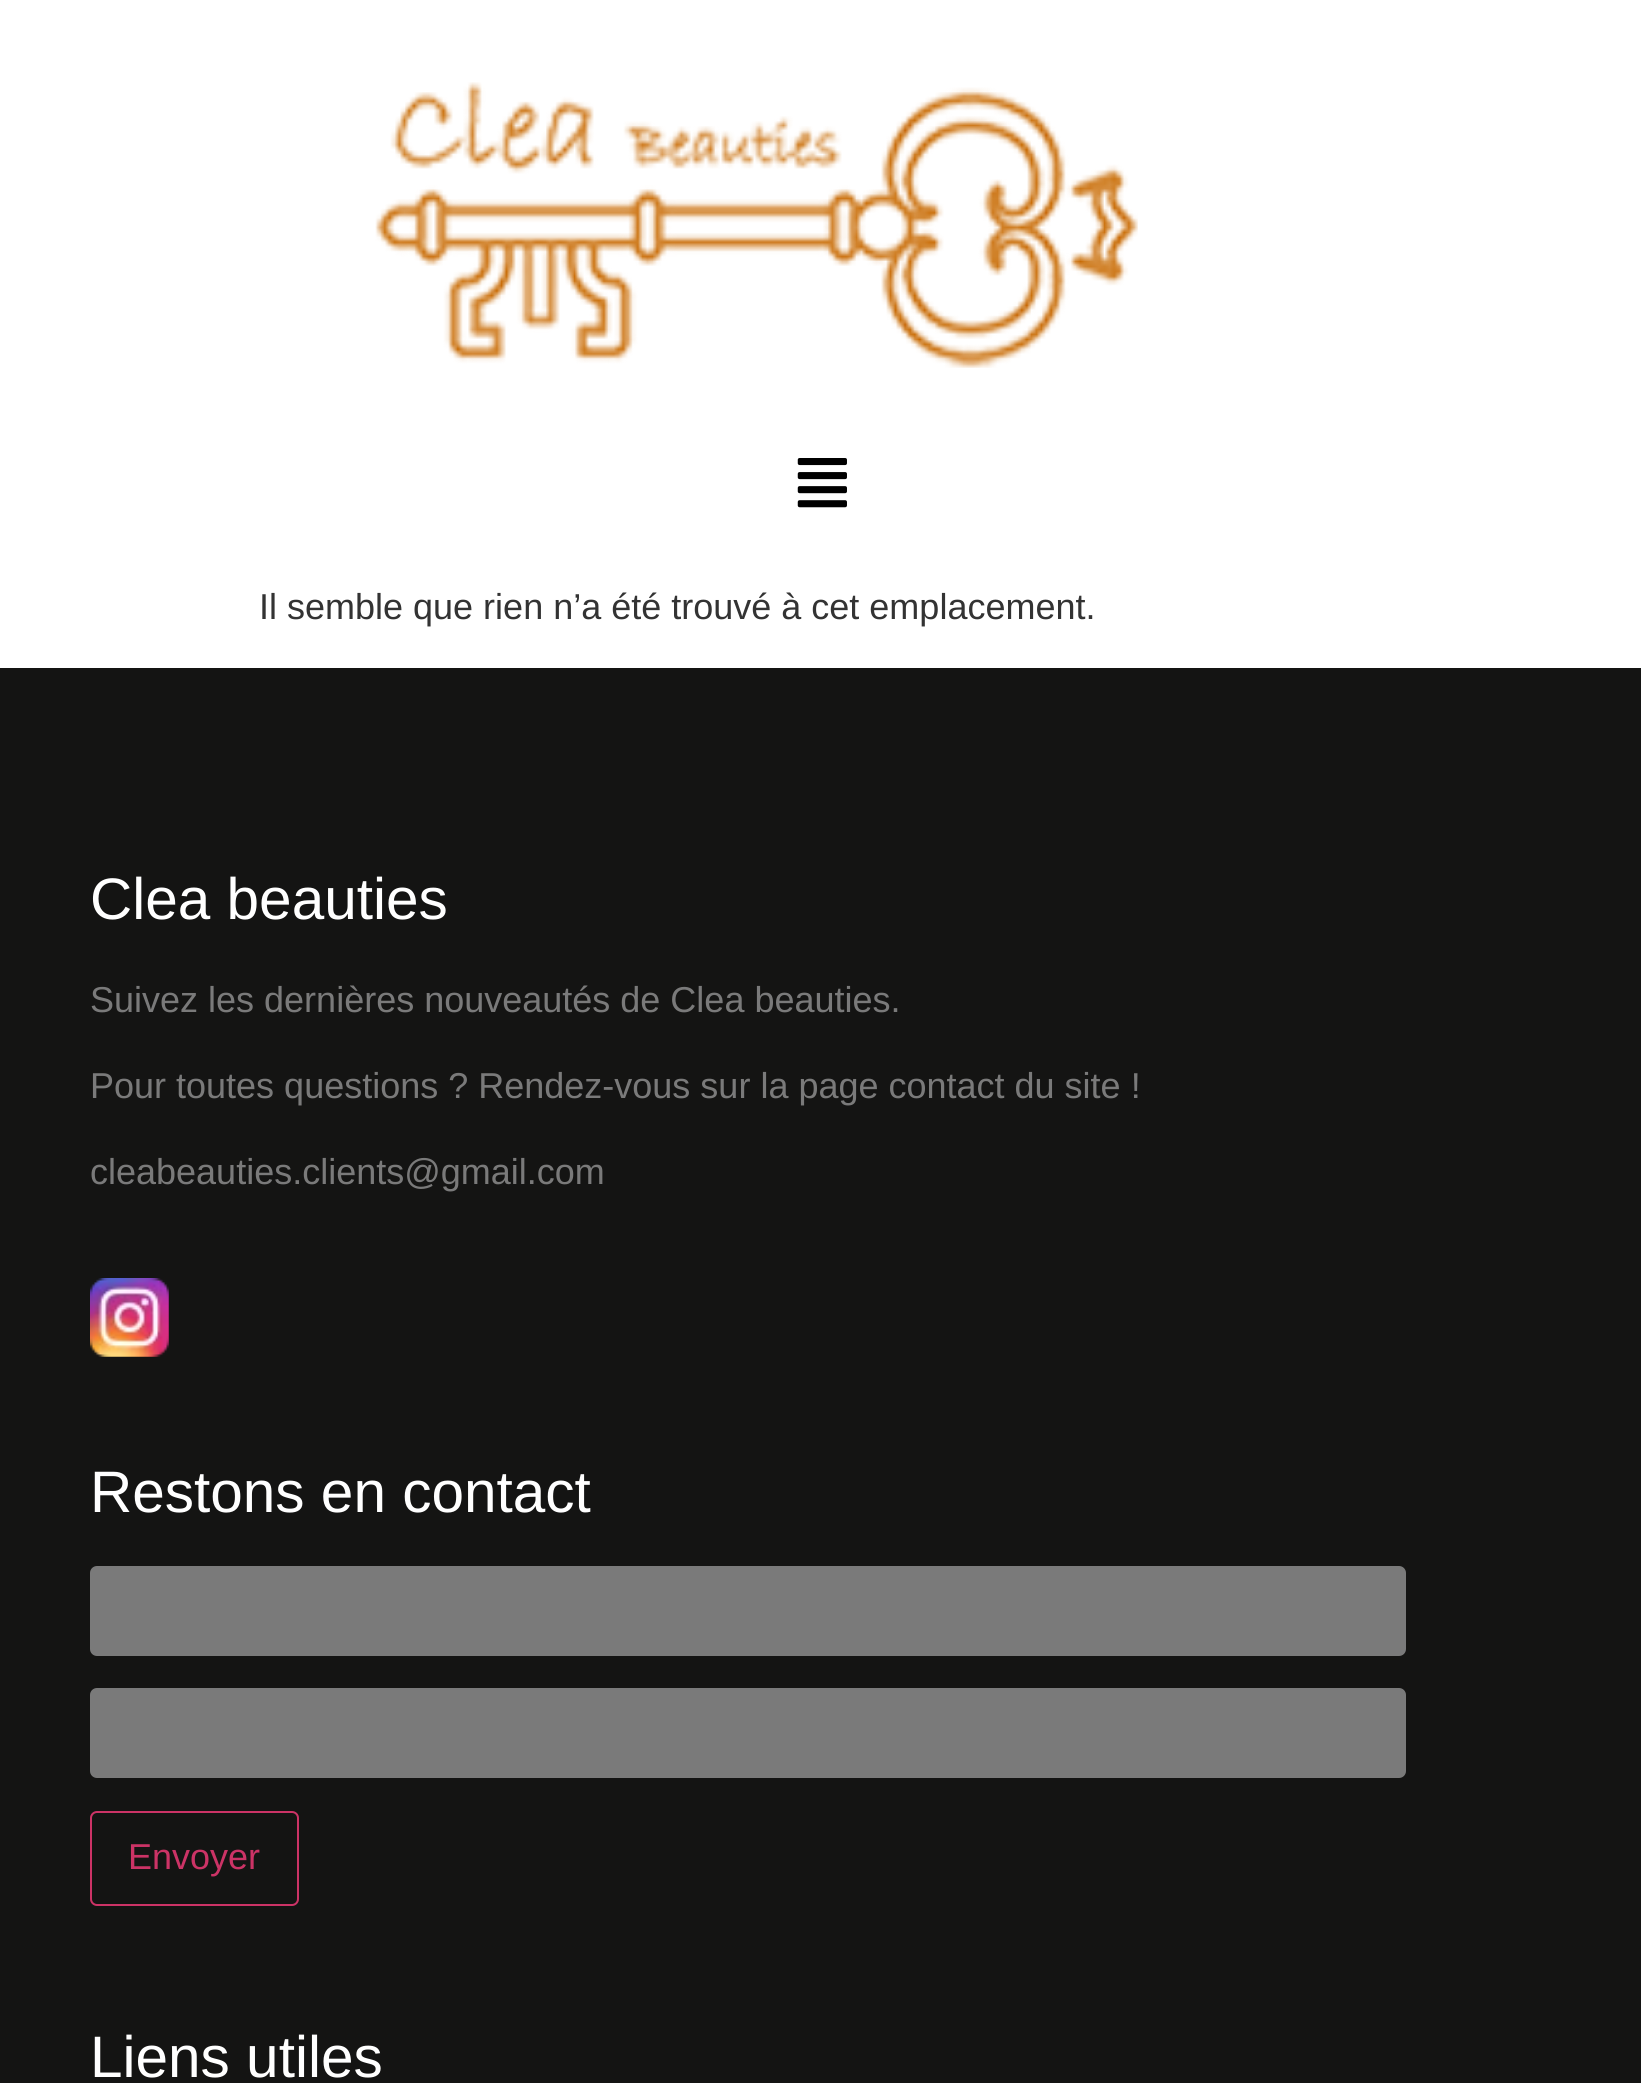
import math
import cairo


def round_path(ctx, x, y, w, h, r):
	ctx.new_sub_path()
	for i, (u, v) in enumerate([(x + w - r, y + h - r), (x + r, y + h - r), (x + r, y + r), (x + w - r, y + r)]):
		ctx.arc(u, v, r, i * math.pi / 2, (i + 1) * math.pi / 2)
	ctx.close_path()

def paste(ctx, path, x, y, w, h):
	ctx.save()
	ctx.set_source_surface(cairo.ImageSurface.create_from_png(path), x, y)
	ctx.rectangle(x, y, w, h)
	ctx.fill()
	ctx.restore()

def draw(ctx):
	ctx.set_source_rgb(1, 1, 1)
	ctx.paint()
	paste(ctx, 'media/1.png', 375, 82, 763, 286)
	paste(ctx, 'media/2.png', 797, 458, 50, 50)
	ctx.select_font_face('Liberation Sans')
	ctx.set_font_size(36)
	ctx.set_source_rgb(0.2, 0.2, 0.2)
	ctx.move_to(259, 619)
	ctx.show_text('Il semble que rien n’a été trouvé à cet emplacement.')
	ctx.set_source_rgb(0.082, 0.082, 0.075)
	ctx.rectangle(0, 668, 1641, 1415)
	ctx.fill()
	ctx.set_font_size(58.5)
	ctx.set_source_rgb(1, 1, 1)
	ctx.move_to(90, 919)
	ctx.show_text('Clea beauties')
	ctx.set_font_size(36)
	ctx.set_source_rgb(0.478, 0.478, 0.478)
	for x, y, s in [
		(90, 1012, 'Suivez les dernières nouveautés de Clea beauties.'),
		(90, 1098, 'Pour toutes questions ? Rendez-vous sur la page contact du site !'),
		(90, 1184, 'cleabeauties.clients@gmail.com'),
	]:
		ctx.move_to(x, y)
		ctx.show_text(s)
	paste(ctx, 'media/3.png', 90, 1278, 79, 79)
	ctx.set_font_size(58.5)
	ctx.set_source_rgb(1, 1, 1)
	ctx.move_to(90, 1512)
	ctx.show_text('Restons en contact')
	ctx.set_source_rgb(0.478, 0.478, 0.478)
	round_path(ctx, 90, 1566, 1316, 90, 7)
	ctx.fill()
	round_path(ctx, 90, 1688, 1316, 90, 7)
	ctx.fill()
	round_path(ctx, 91, 1812, 207, 93, 6)
	ctx.set_source_rgb(0.8, 0.2, 0.4)
	ctx.stroke()
	ctx.set_font_size(36)
	ctx.move_to(128, 1869)
	ctx.show_text('Envoyer')
	ctx.set_font_size(58.5)
	ctx.set_source_rgb(1, 1, 1)
	ctx.move_to(90, 2077)
	ctx.show_text('Liens utiles')


surface = cairo.ImageSurface(cairo.FORMAT_RGB24, 1641, 2083)
ctx = cairo.Context(surface)
options = cairo.FontOptions()
options.set_hint_metrics(cairo.HINT_METRICS_OFF)
options.set_hint_style(cairo.HINT_STYLE_NONE)
ctx.set_font_options(options)
ctx.set_miter_limit(4)
draw(ctx)
surface.write_to_png('image.png')
